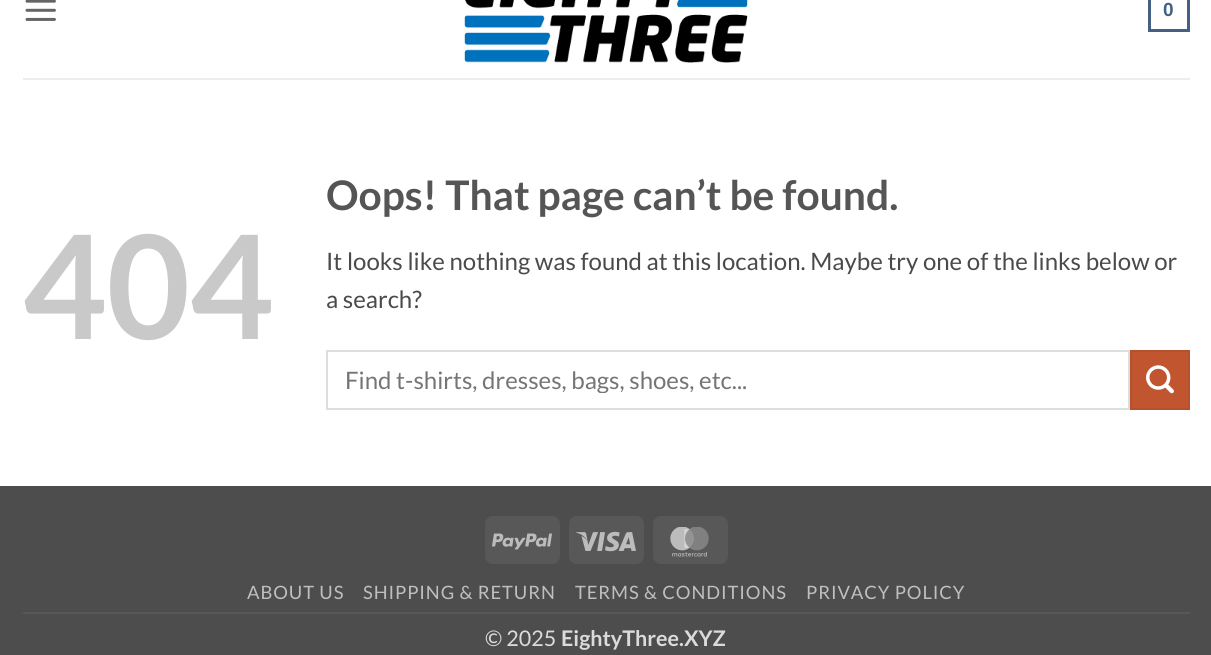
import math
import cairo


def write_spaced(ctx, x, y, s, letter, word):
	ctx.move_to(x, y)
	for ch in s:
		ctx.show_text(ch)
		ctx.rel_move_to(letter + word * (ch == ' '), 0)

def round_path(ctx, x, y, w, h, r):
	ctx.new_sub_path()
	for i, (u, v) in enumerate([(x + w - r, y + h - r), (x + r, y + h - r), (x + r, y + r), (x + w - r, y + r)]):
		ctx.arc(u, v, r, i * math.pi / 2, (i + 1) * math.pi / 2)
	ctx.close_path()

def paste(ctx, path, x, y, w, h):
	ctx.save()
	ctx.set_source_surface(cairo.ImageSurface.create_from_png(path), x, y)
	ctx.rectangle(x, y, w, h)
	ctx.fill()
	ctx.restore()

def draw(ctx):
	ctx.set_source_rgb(1, 1, 1)
	ctx.paint()
	paste(ctx, 'media/1.png', 25, 0, 31, 21)
	paste(ctx, 'media/2.png', 464, 0, 284, 63)
	ctx.rectangle(1149.5, -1.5, 39, 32)
	ctx.set_source_rgb(0.267, 0.376, 0.518)
	ctx.set_line_width(3)
	ctx.stroke()
	ctx.select_font_face('Liberation Sans', cairo.FONT_SLANT_NORMAL, cairo.FONT_WEIGHT_BOLD)
	ctx.set_font_size(19)
	ctx.move_to(1163, 16)
	ctx.show_text('0')
	ctx.set_source_rgb(0.929, 0.929, 0.929)
	ctx.rectangle(23, 78, 1167, 2)
	ctx.fill()
	ctx.select_font_face('Lato', cairo.FONT_SLANT_NORMAL, cairo.FONT_WEIGHT_BOLD)
	ctx.set_font_size(144)
	ctx.set_source_rgb(0.788, 0.788, 0.788)
	ctx.move_to(23, 339)
	ctx.show_text('404')
	ctx.set_font_size(40.75)
	ctx.set_source_rgb(0.333, 0.333, 0.333)
	ctx.move_to(326, 210)
	ctx.show_text('Oops! That page can’t be found.')
	ctx.select_font_face('Lato')
	ctx.set_font_size(24)
	ctx.set_source_rgb(0.29, 0.29, 0.29)
	ctx.move_to(326, 270)
	ctx.show_text('It looks like nothing was found at this location. Maybe try one of the links below or')
	ctx.move_to(326, 308)
	ctx.show_text('a search?')
	ctx.rectangle(327, 351, 802, 58)
	ctx.set_source_rgb(0.867, 0.867, 0.867)
	ctx.set_line_width(2)
	ctx.stroke()
	ctx.save()
	ctx.rectangle(345, 365, 759, 28)
	ctx.clip()
	ctx.set_source_rgb(0.459, 0.459, 0.459)
	ctx.move_to(345, 389)
	ctx.show_text('Find t-shirts, dresses, bags, shoes, etc...')
	ctx.restore()
	ctx.set_source_rgb(0.753, 0.333, 0.188)
	ctx.rectangle(1131, 351, 58, 58)
	ctx.fill_preserve()
	ctx.set_source_rgb(0.714, 0.318, 0.18)
	ctx.stroke()
	paste(ctx, 'media/3.png', 1146, 365, 28, 29)
	ctx.set_source_rgb(0.302, 0.302, 0.302)
	ctx.rectangle(0, 486, 1211, 169)
	ctx.fill()
	ctx.set_source_rgb(0.345, 0.345, 0.345)
	round_path(ctx, 485, 516, 75, 48, 8)
	ctx.fill()
	paste(ctx, 'media/4.png', 492, 533, 60, 17)
	round_path(ctx, 569, 516, 75, 48, 8)
	ctx.fill()
	paste(ctx, 'media/5.png', 576, 531, 60, 21)
	round_path(ctx, 653, 516, 75, 48, 8)
	ctx.fill()
	paste(ctx, 'media/6.png', 670, 527, 39, 30)
	ctx.rectangle(23, 612, 1167, 2)
	ctx.fill()
	ctx.set_font_size(18.4)
	ctx.set_source_rgb(0.749, 0.749, 0.749)
	for x, y, s in [
		(247, 599, 'ABOUT US'),
		(363, 599, 'SHIPPING & RETURN'),
		(575, 599, 'TERMS & CONDITIONS'),
		(806, 599, 'PRIVACY POLICY'),
	]:
		write_spaced(ctx, x, y, s, 0.9, 0)
	ctx.set_font_size(21.5)
	ctx.set_source_rgb(0.859, 0.859, 0.859)
	ctx.move_to(485, 646)
	ctx.show_text('© 2025')
	ctx.select_font_face('Lato', cairo.FONT_SLANT_NORMAL, cairo.FONT_WEIGHT_BOLD)
	ctx.move_to(561, 646)
	ctx.show_text('EightyThree.XYZ')


surface = cairo.ImageSurface(cairo.FORMAT_RGB24, 1211, 655)
ctx = cairo.Context(surface)
options = cairo.FontOptions()
options.set_hint_metrics(cairo.HINT_METRICS_OFF)
options.set_hint_style(cairo.HINT_STYLE_NONE)
ctx.set_font_options(options)
ctx.set_miter_limit(4)
draw(ctx)
surface.write_to_png('image.png')
